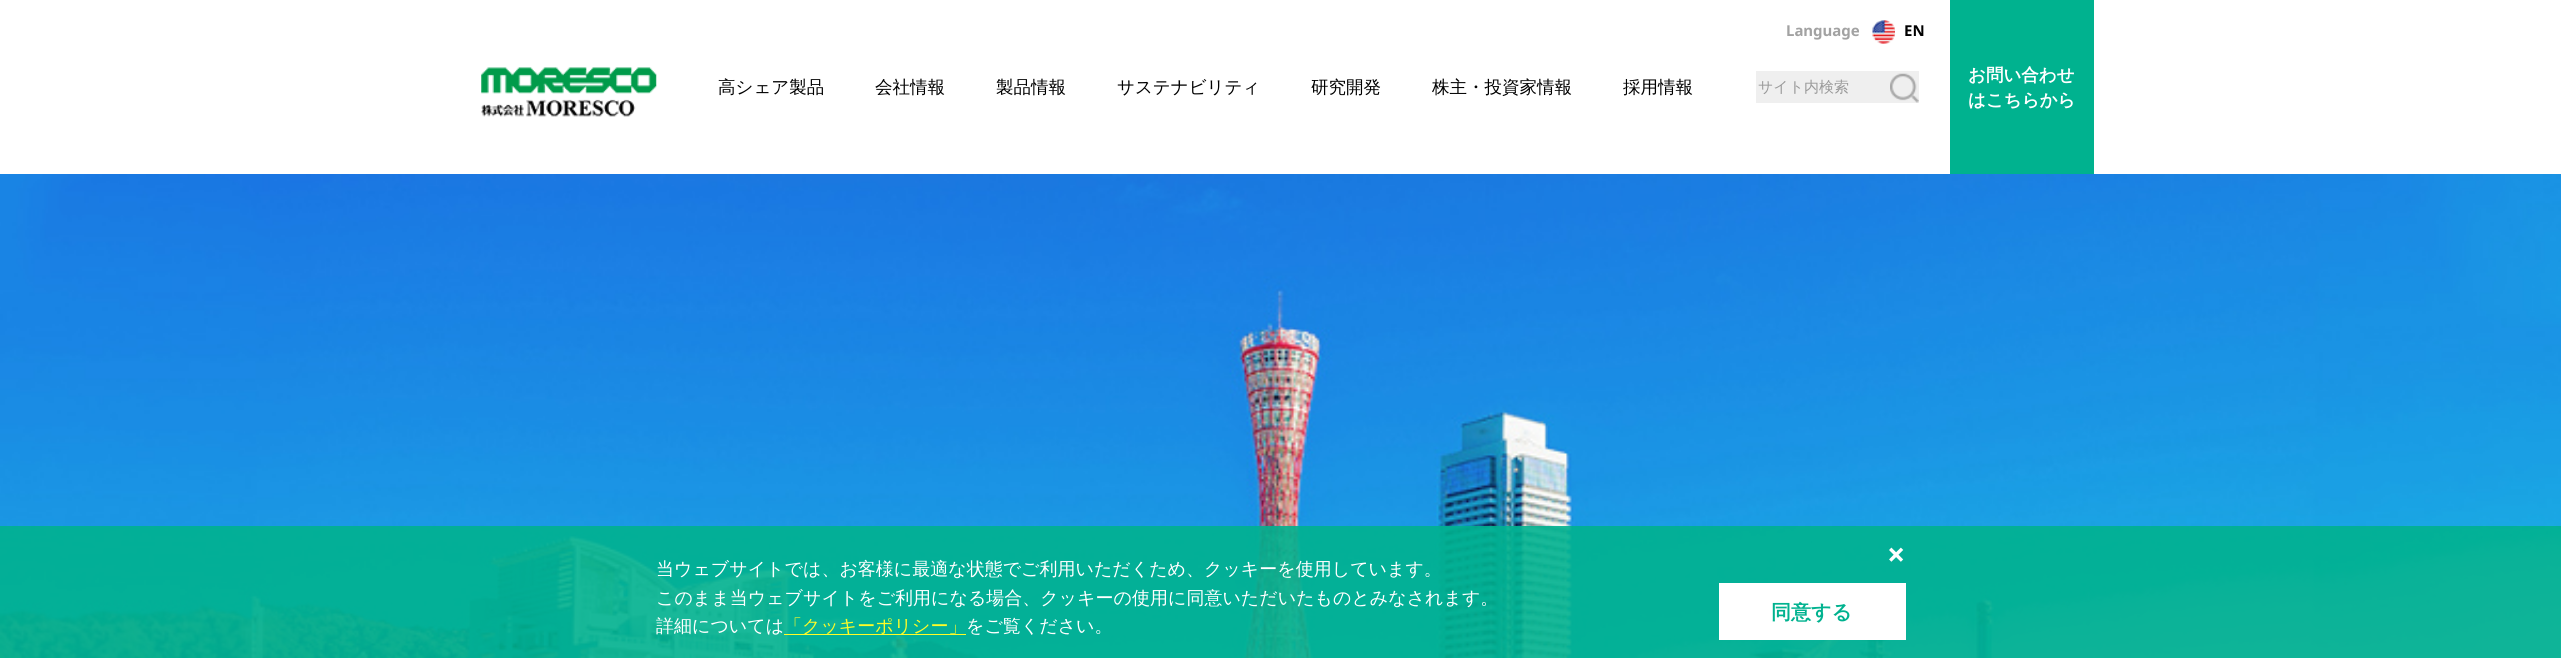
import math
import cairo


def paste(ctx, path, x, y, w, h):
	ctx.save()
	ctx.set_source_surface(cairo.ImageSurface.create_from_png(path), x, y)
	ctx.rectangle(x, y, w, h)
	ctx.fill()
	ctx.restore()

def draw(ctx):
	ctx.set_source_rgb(1, 1, 1)
	ctx.paint()
	paste(ctx, 'media/1.png', 481, 67, 176, 50)
	ctx.select_font_face('WenQuanYi Zen Hei Medium')
	ctx.set_font_size(17.5)
	ctx.set_source_rgb(0, 0, 0)
	for x, y, s in [
		(718, 93, '高シェア製品'),
		(875, 93, '会社情報'),
		(996, 93, '製品情報'),
		(1117, 93, 'サステナビリティ'),
		(1311, 93, '研究開発'),
		(1432, 93, '株主・投資家情報'),
		(1623, 93, '採用情報'),
	]:
		ctx.move_to(x, y)
		ctx.show_text(s)
	ctx.set_source_rgb(0.937, 0.937, 0.937)
	ctx.rectangle(1756, 71, 163, 32)
	ctx.fill()
	ctx.set_font_size(15)
	ctx.set_source_rgb(0.6, 0.6, 0.6)
	ctx.move_to(1758, 92)
	ctx.show_text('サイト内検索')
	paste(ctx, 'media/2.png', 1890, 73, 29, 30)
	ctx.select_font_face('Noto Sans', cairo.FONT_SLANT_NORMAL, cairo.FONT_WEIGHT_BOLD)
	ctx.set_source_rgb(0.635, 0.635, 0.635)
	ctx.move_to(1786, 36)
	ctx.show_text('Language')
	paste(ctx, 'media/3.png', 1872, 20, 23, 24)
	ctx.set_source_rgb(0, 0, 0)
	ctx.move_to(1904, 36)
	ctx.show_text('EN')
	ctx.set_source_rgb(0, 0.698, 0.561)
	ctx.rectangle(1950, 0, 144, 174)
	ctx.fill()
	ctx.select_font_face('WenQuanYi Zen Hei', cairo.FONT_SLANT_NORMAL, cairo.FONT_WEIGHT_BOLD)
	ctx.set_font_size(17.5)
	ctx.set_source_rgb(1, 1, 1)
	ctx.move_to(1968, 81)
	ctx.show_text('お問い合わせ')
	ctx.move_to(1968, 106)
	ctx.show_text('はこちらから')
	paste(ctx, 'media/4.png', 0, 174, 2561, 484)
	ctx.set_source_rgba(0, 0.698, 0.561, 0.9)
	ctx.rectangle(0, 526, 2561, 132)
	ctx.fill()
	ctx.select_font_face('Noto Sans', cairo.FONT_SLANT_NORMAL, cairo.FONT_WEIGHT_BOLD)
	ctx.set_font_size(32)
	ctx.set_source_rgb(1, 1, 1)
	ctx.move_to(1887, 566)
	ctx.show_text('×')
	ctx.select_font_face('WenQuanYi Zen Hei Medium')
	ctx.set_font_size(18)
	for x, y, s in [
		(656, 575, '当ウェブサイトでは、お客様に最適な状態でご利用いただくため、クッキーを使用しています。'),
		(656, 604, 'このまま当ウェブサイトをご利用になる場合、クッキーの使用に同意いただいたものとみなされます。'),
		(656, 632, '詳細については'),
	]:
		ctx.move_to(x, y)
		ctx.show_text(s)
	ctx.set_source_rgb(1, 0.988, 0.149)
	ctx.rectangle(784, 634, 182, 1)
	ctx.fill()
	ctx.move_to(784, 632)
	ctx.show_text('「クッキーポリシー」')
	ctx.set_source_rgb(1, 1, 1)
	ctx.move_to(966, 632)
	ctx.show_text('をご覧ください。')
	ctx.rectangle(1719, 583, 187, 57)
	ctx.fill()
	ctx.select_font_face('WenQuanYi Zen Hei', cairo.FONT_SLANT_NORMAL, cairo.FONT_WEIGHT_BOLD)
	ctx.set_font_size(20)
	ctx.set_source_rgb(0, 0.698, 0.561)
	ctx.move_to(1771, 619)
	ctx.show_text('同意する')


surface = cairo.ImageSurface(cairo.FORMAT_RGB24, 2561, 658)
ctx = cairo.Context(surface)
options = cairo.FontOptions()
options.set_hint_metrics(cairo.HINT_METRICS_OFF)
options.set_hint_style(cairo.HINT_STYLE_NONE)
ctx.set_font_options(options)
ctx.set_miter_limit(4)
draw(ctx)
surface.write_to_png('image.png')
